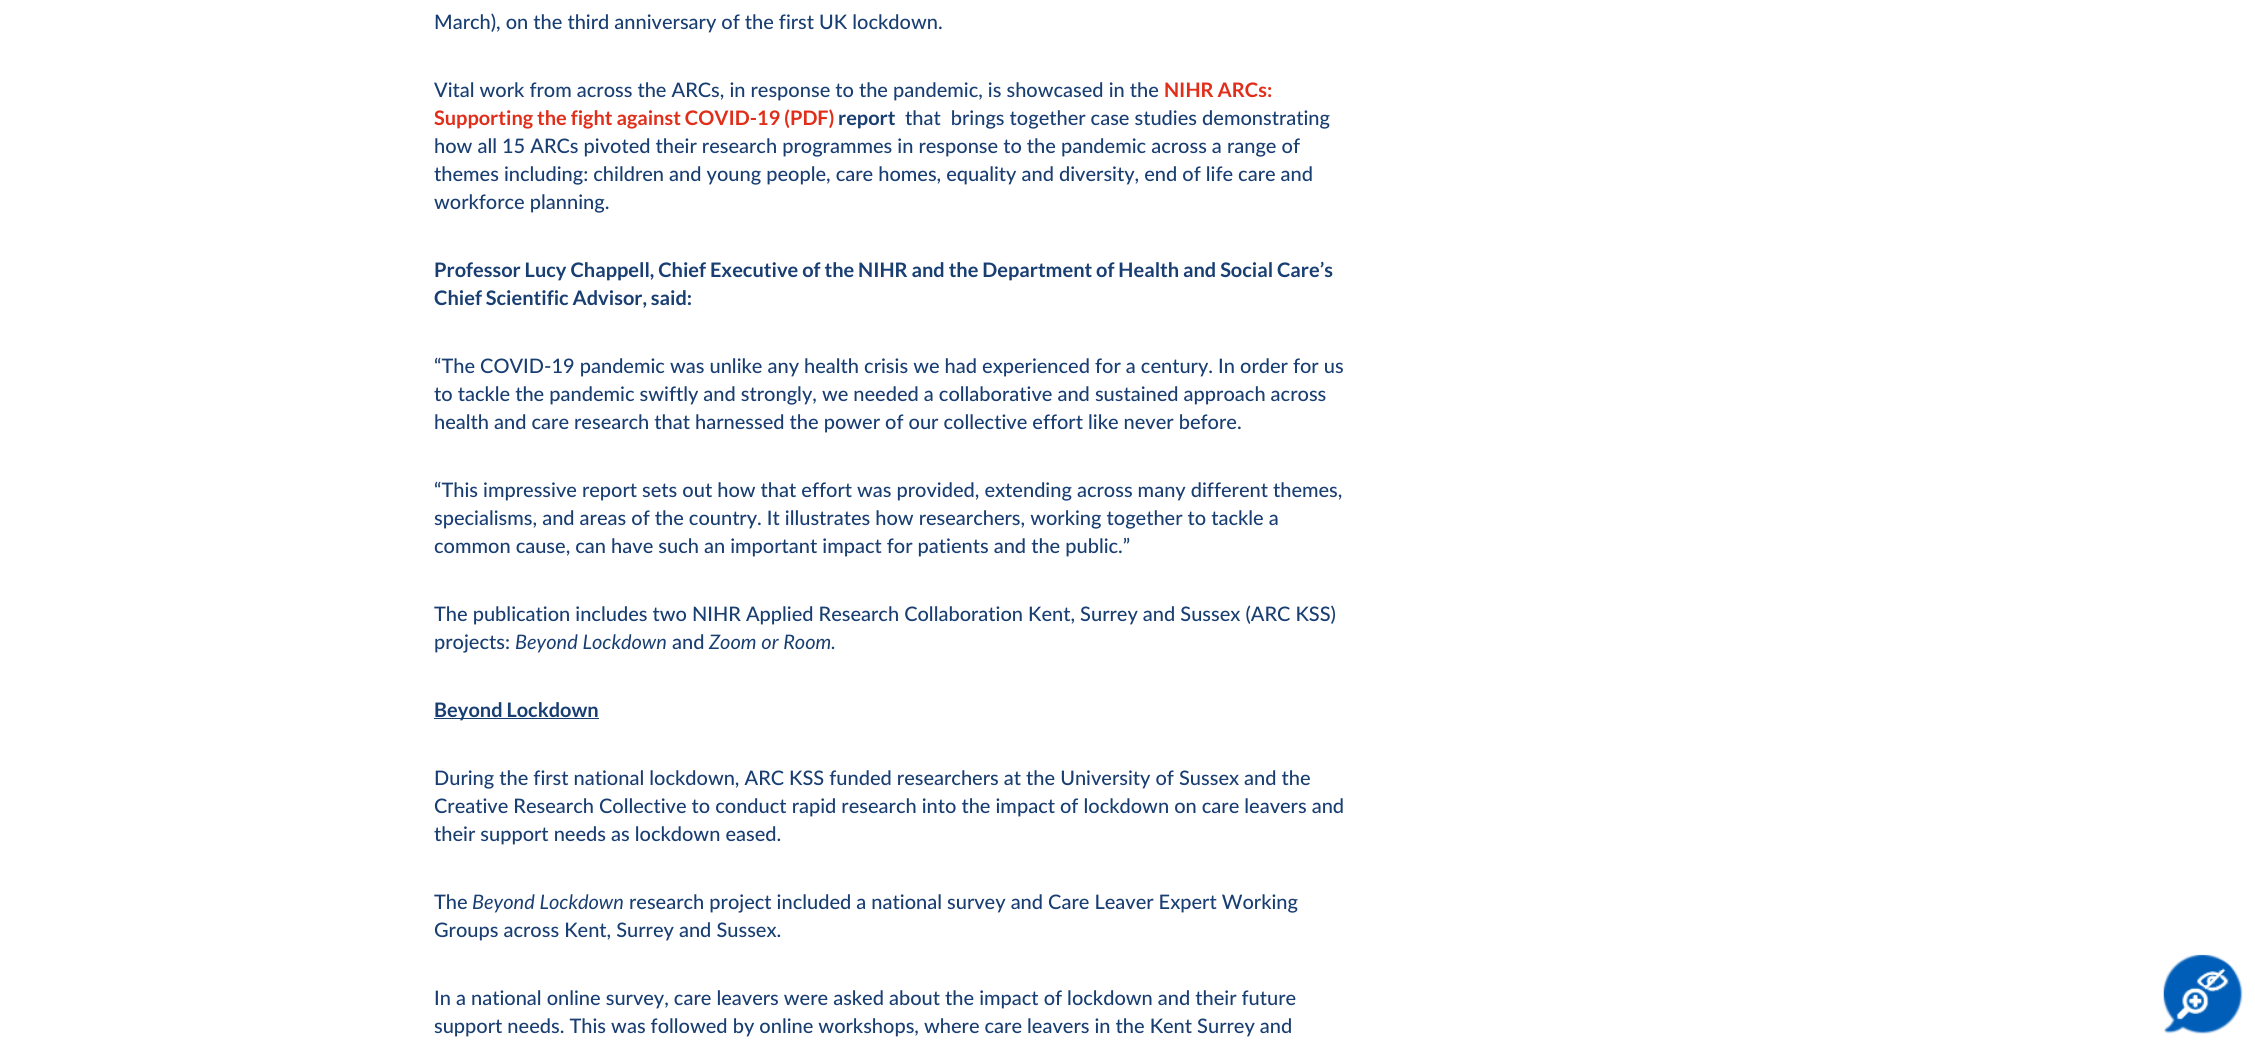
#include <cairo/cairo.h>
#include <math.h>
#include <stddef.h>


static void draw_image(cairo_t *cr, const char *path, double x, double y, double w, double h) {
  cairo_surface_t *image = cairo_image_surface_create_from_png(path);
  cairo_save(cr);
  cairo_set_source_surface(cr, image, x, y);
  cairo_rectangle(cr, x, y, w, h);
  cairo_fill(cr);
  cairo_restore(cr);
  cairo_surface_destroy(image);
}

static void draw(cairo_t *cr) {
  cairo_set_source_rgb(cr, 1, 1, 1);
  cairo_paint(cr);
  cairo_set_source_rgb(cr, 25 / 255.0, 62 / 255.0, 114 / 255.0);
  cairo_rectangle(cr, 434, 718, 165, 1);
  cairo_fill(cr);
  draw_image(cr, "images/1.png", 2163, 954, 80, 80);
  cairo_select_font_face(cr, "Lato Medium", CAIRO_FONT_SLANT_NORMAL, CAIRO_FONT_WEIGHT_NORMAL);
  cairo_set_font_size(cr, 20);
  cairo_move_to(cr, 434, 29);
  cairo_show_text(cr, "March), on the third anniversary of the first UK lockdown.");
  cairo_move_to(cr, 434, 97);
  cairo_show_text(cr, "Vital work from across the ARCs, in response to the pandemic, is showcased in the");
  cairo_select_font_face(cr, "Lato", CAIRO_FONT_SLANT_NORMAL, CAIRO_FONT_WEIGHT_BOLD);
  cairo_set_source_rgb(cr, 224 / 255.0, 46 / 255.0, 26 / 255.0);
  cairo_move_to(cr, 1164, 97);
  cairo_show_text(cr, "NIHR ARCs:");
  cairo_move_to(cr, 434, 125);
  cairo_show_text(cr, "Supporting the fight against COVID-19 (PDF)");
  cairo_set_source_rgb(cr, 25 / 255.0, 62 / 255.0, 114 / 255.0);
  cairo_move_to(cr, 838, 125);
  cairo_show_text(cr, "report");
  cairo_select_font_face(cr, "Lato Medium", CAIRO_FONT_SLANT_NORMAL, CAIRO_FONT_WEIGHT_NORMAL);
  cairo_move_to(cr, 905, 125);
  cairo_show_text(cr, "that  brings together case studies demonstrating");
  cairo_move_to(cr, 434, 153);
  cairo_show_text(cr, "how all 15 ARCs pivoted their research programmes in response to the pandemic across a range of");
  cairo_move_to(cr, 434, 181);
  cairo_show_text(cr, "themes including: children and young people, care homes, equality and diversity, end of life care and");
  cairo_move_to(cr, 434, 209);
  cairo_show_text(cr, "workforce planning.");
  cairo_select_font_face(cr, "Lato", CAIRO_FONT_SLANT_NORMAL, CAIRO_FONT_WEIGHT_BOLD);
  cairo_move_to(cr, 434, 277);
  cairo_show_text(cr, "Professor Lucy Chappell, Chief Executive of the NIHR and the Department of Health and Social Care’s");
  cairo_move_to(cr, 434, 305);
  cairo_show_text(cr, "Chief Scientific Advisor, said:");
  cairo_select_font_face(cr, "Lato Medium", CAIRO_FONT_SLANT_NORMAL, CAIRO_FONT_WEIGHT_NORMAL);
  cairo_move_to(cr, 434, 373);
  cairo_show_text(cr, "“The COVID-19 pandemic was unlike any health crisis we had experienced for a century. In order for us");
  cairo_move_to(cr, 434, 401);
  cairo_show_text(cr, "to tackle the pandemic swiftly and strongly, we needed a collaborative and sustained approach across");
  cairo_move_to(cr, 434, 429);
  cairo_show_text(cr, "health and care research that harnessed the power of our collective effort like never before.");
  cairo_move_to(cr, 434, 497);
  cairo_show_text(cr, "“This impressive report sets out how that effort was provided, extending across many different themes,");
  cairo_move_to(cr, 434, 525);
  cairo_show_text(cr, "specialisms, and areas of the country. It illustrates how researchers, working together to tackle a");
  cairo_move_to(cr, 434, 553);
  cairo_show_text(cr, "common cause, can have such an important impact for patients and the public.”");
  cairo_move_to(cr, 434, 621);
  cairo_show_text(cr, "The publication includes two NIHR Applied Research Collaboration Kent, Surrey and Sussex (ARC KSS)");
  cairo_move_to(cr, 434, 649);
  cairo_show_text(cr, "projects:");
  cairo_select_font_face(cr, "Lato", CAIRO_FONT_SLANT_ITALIC, CAIRO_FONT_WEIGHT_NORMAL);
  cairo_move_to(cr, 515, 649);
  cairo_show_text(cr, "Beyond Lockdown");
  cairo_select_font_face(cr, "Lato Medium", CAIRO_FONT_SLANT_NORMAL, CAIRO_FONT_WEIGHT_NORMAL);
  cairo_move_to(cr, 672, 649);
  cairo_show_text(cr, "and");
  cairo_select_font_face(cr, "Lato", CAIRO_FONT_SLANT_ITALIC, CAIRO_FONT_WEIGHT_NORMAL);
  cairo_move_to(cr, 709, 649);
  cairo_show_text(cr, "Zoom or Room.");
  cairo_select_font_face(cr, "Lato", CAIRO_FONT_SLANT_NORMAL, CAIRO_FONT_WEIGHT_BOLD);
  cairo_move_to(cr, 434, 717);
  cairo_show_text(cr, "Beyond Lockdown");
  cairo_select_font_face(cr, "Lato Medium", CAIRO_FONT_SLANT_NORMAL, CAIRO_FONT_WEIGHT_NORMAL);
  cairo_move_to(cr, 434, 785);
  cairo_show_text(cr, "During the first national lockdown, ARC KSS funded researchers at the University of Sussex and the");
  cairo_move_to(cr, 434, 813);
  cairo_show_text(cr, "Creative Research Collective to conduct rapid research into the impact of lockdown on care leavers and");
  cairo_move_to(cr, 434, 841);
  cairo_show_text(cr, "their support needs as lockdown eased.");
  cairo_move_to(cr, 434, 909);
  cairo_show_text(cr, "The");
  cairo_select_font_face(cr, "Lato", CAIRO_FONT_SLANT_ITALIC, CAIRO_FONT_WEIGHT_NORMAL);
  cairo_move_to(cr, 472, 909);
  cairo_show_text(cr, "Beyond Lockdown");
  cairo_select_font_face(cr, "Lato Medium", CAIRO_FONT_SLANT_NORMAL, CAIRO_FONT_WEIGHT_NORMAL);
  cairo_move_to(cr, 629, 909);
  cairo_show_text(cr, "research project included a national survey and Care Leaver Expert Working");
  cairo_move_to(cr, 434, 937);
  cairo_show_text(cr, "Groups across Kent, Surrey and Sussex.");
  cairo_move_to(cr, 434, 1005);
  cairo_show_text(cr, "In a national online survey, care leavers were asked about the impact of lockdown and their future");
  cairo_move_to(cr, 434, 1033);
  cairo_show_text(cr, "support needs. This was followed by online workshops, where care leavers in the Kent Surrey and");
}

int main(void) {
  cairo_surface_t *surface = cairo_image_surface_create(CAIRO_FORMAT_RGB24, 2255, 1046);
  cairo_t *cr = cairo_create(surface);
  cairo_font_options_t *options = cairo_font_options_create();
  cairo_font_options_set_hint_metrics(options, CAIRO_HINT_METRICS_OFF);
  cairo_font_options_set_hint_style(options, CAIRO_HINT_STYLE_NONE);
  cairo_set_font_options(cr, options);
  cairo_set_miter_limit(cr, 4);
  draw(cr);
  cairo_surface_write_to_png(surface, "out.png");
  cairo_font_options_destroy(options);
  cairo_destroy(cr);
  cairo_surface_destroy(surface);
  return 0;
}
